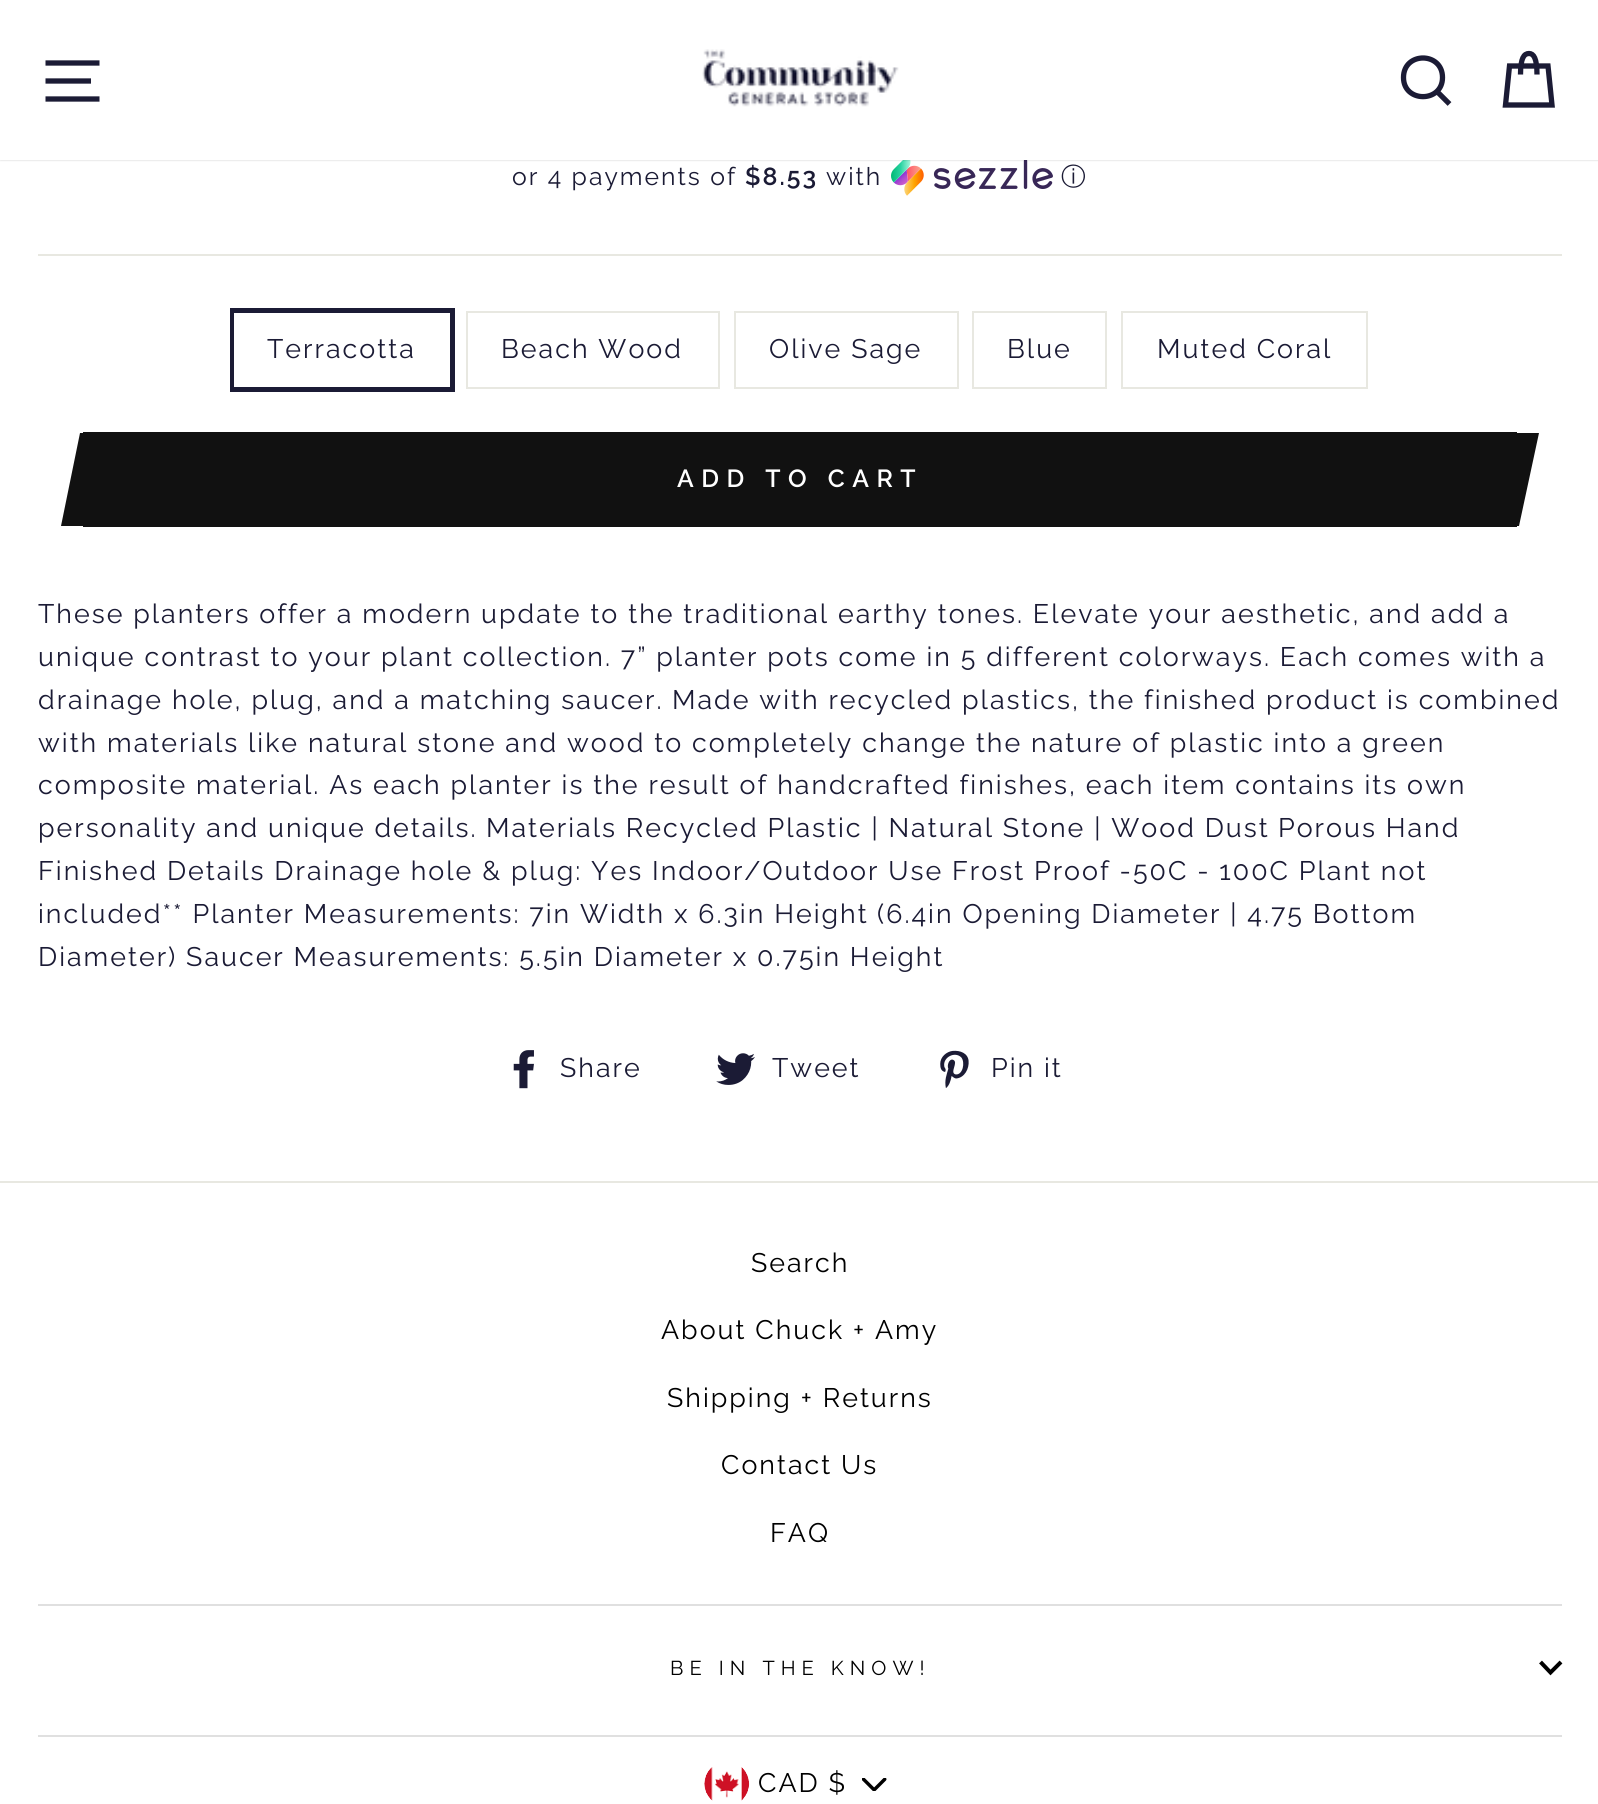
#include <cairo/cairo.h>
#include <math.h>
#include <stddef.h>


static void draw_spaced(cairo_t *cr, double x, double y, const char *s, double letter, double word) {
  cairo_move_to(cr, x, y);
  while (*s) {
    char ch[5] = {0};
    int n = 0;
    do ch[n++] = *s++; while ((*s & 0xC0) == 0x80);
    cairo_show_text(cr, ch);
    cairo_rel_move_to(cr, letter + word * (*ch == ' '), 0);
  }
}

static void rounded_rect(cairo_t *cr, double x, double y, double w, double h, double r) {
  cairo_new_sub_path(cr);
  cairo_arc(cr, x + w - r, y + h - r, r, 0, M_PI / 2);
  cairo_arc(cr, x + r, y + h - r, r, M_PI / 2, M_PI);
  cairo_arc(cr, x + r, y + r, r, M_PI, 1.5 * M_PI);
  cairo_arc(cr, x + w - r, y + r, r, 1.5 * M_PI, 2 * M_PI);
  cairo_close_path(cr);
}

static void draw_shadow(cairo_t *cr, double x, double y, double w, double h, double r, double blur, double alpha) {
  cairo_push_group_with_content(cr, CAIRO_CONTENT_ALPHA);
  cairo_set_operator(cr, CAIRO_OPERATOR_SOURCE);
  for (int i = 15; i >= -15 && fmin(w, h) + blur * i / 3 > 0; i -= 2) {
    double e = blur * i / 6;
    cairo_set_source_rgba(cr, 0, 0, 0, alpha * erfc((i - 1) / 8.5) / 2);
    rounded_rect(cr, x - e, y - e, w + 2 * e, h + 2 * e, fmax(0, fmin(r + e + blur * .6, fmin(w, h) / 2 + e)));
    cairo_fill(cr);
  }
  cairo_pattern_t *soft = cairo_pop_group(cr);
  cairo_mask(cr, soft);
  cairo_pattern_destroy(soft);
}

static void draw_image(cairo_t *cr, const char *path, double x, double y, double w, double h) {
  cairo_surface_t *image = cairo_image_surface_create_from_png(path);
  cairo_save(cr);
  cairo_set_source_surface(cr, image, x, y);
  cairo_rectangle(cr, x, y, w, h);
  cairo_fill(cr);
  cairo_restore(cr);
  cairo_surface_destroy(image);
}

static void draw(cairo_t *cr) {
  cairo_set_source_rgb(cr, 1, 1, 1);
  cairo_paint(cr);
  draw_image(cr, "images/2.png", 891, 160, 162, 36);
  cairo_set_source_rgb(cr, 0, 0, 0);
  draw_shadow(cr, 0, 0, 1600, 160, 0, 1, 0.2);
  cairo_set_source_rgb(cr, 1, 1, 1);
  cairo_rectangle(cr, 0, 0, 1598, 160);
  cairo_fill(cr);
  cairo_new_path(cr);
  cairo_move_to(cr, 45.5, 63);
  cairo_line_to(cr, 99.5, 63);
  cairo_move_to(cr, 45.5, 81);
  cairo_line_to(cr, 91, 81);
  cairo_move_to(cr, 45.5, 99);
  cairo_line_to(cr, 99.5, 99);
  cairo_set_source_rgb(cr, 27 / 255.0, 27 / 255.0, 53 / 255.0);
  cairo_set_line_width(cr, 5.3);
  cairo_stroke(cr);
  draw_image(cr, "images/1.png", 702, 49, 197, 58);
  cairo_new_path(cr);
  cairo_move_to(cr, 1442.5, 77.5);
  cairo_curve_to(cr, 1442.5, 103, 1403.5, 103, 1403.5, 77.5);
  cairo_curve_to(cr, 1403.5, 51.5, 1442.5, 51.5, 1442.5, 77.5);
  cairo_close_path(cr);
  cairo_move_to(cr, 1449.5, 104);
  cairo_line_to(cr, 1437, 91.5);
  cairo_stroke(cr);
  cairo_new_path(cr);
  cairo_move_to(cr, 1520.5, 74.5);
  cairo_curve_to(cr, 1520.5, 58, 1524, 53.5, 1529, 53.5);
  cairo_curve_to(cr, 1533.5, 53.5, 1537, 58, 1537, 74.5);
  cairo_move_to(cr, 1509.5, 66);
  cairo_line_to(cr, 1548, 66);
  cairo_line_to(cr, 1552, 105);
  cairo_line_to(cr, 1505.5, 105);
  cairo_close_path(cr);
  cairo_stroke(cr);
  cairo_set_source_rgb(cr, 232 / 255.0, 232 / 255.0, 225 / 255.0);
  cairo_rectangle(cr, 38, 254, 1524, 2);
  cairo_fill(cr);
  cairo_rectangle(cr, 232.5, 310.5, 220, 79);
  cairo_set_source_rgb(cr, 27 / 255.0, 27 / 255.0, 53 / 255.0);
  cairo_set_line_width(cr, 5);
  cairo_stroke(cr);
  cairo_set_source_rgb(cr, 1, 1, 1);
  cairo_rectangle(cr, 234, 313, 1, 74);
  cairo_fill(cr);
  cairo_rectangle(cr, 467, 312, 252, 76);
  cairo_set_source_rgb(cr, 232 / 255.0, 232 / 255.0, 225 / 255.0);
  cairo_set_line_width(cr, 2);
  cairo_stroke(cr);
  cairo_rectangle(cr, 735, 312, 223, 76);
  cairo_stroke(cr);
  cairo_rectangle(cr, 973, 312, 133, 76);
  cairo_stroke(cr);
  cairo_rectangle(cr, 1122, 312, 245, 76);
  cairo_stroke(cr);
  cairo_set_source_rgb(cr, 17 / 255.0, 17 / 255.0, 17 / 255.0);
  cairo_rectangle(cr, 83, 432, 1434, 95);
  cairo_fill(cr);
  cairo_new_path(cr);
  cairo_move_to(cr, 80, 433);
  cairo_line_to(cr, 125, 433);
  cairo_line_to(cr, 106, 526);
  cairo_line_to(cr, 61, 526);
  cairo_close_path(cr);
  cairo_fill(cr);
  cairo_new_path(cr);
  cairo_move_to(cr, 1494, 433);
  cairo_line_to(cr, 1539, 433);
  cairo_line_to(cr, 1519, 526);
  cairo_line_to(cr, 1474, 526);
  cairo_close_path(cr);
  cairo_fill(cr);
  draw_image(cr, "images/3.png", 513, 1050, 21, 39);
  draw_image(cr, "images/4.png", 716, 1053, 39, 32);
  draw_image(cr, "images/5.png", 940, 1050, 29, 38);
  cairo_set_source_rgb(cr, 232 / 255.0, 232 / 255.0, 225 / 255.0);
  cairo_rectangle(cr, 0, 1181, 1598, 2);
  cairo_fill(cr);
  cairo_set_source_rgb(cr, 224 / 255.0, 224 / 255.0, 224 / 255.0);
  cairo_rectangle(cr, 38, 1604, 1524, 2);
  cairo_fill(cr);
  cairo_new_path(cr);
  cairo_move_to(cr, 1540.5, 1662);
  cairo_line_to(cr, 1550.5, 1672.5);
  cairo_line_to(cr, 1561, 1662);
  cairo_set_source_rgb(cr, 0, 0, 0);
  cairo_set_line_width(cr, 4);
  cairo_stroke(cr);
  cairo_set_source_rgb(cr, 224 / 255.0, 224 / 255.0, 224 / 255.0);
  cairo_rectangle(cr, 38, 1735, 1524, 2);
  cairo_fill(cr);
  draw_image(cr, "images/6.png", 862, 1778, 25, 13);
  draw_image(cr, "images/7.png", 704, 1767, 46, 34);
  cairo_select_font_face(cr, "Raleway", CAIRO_FONT_SLANT_NORMAL, CAIRO_FONT_WEIGHT_NORMAL);
  cairo_set_font_size(cr, 24.75);
  cairo_set_source_rgb(cr, 27 / 255.0, 27 / 255.0, 53 / 255.0);
  draw_spaced(cr, 512, 185, "or 4 payments of", 2.01, 0);
  cairo_select_font_face(cr, "Raleway SemiBold", CAIRO_FONT_SLANT_NORMAL, CAIRO_FONT_WEIGHT_NORMAL);
  draw_spaced(cr, 745, 185, "$8.53", 2.01, 0);
  cairo_select_font_face(cr, "Raleway", CAIRO_FONT_SLANT_NORMAL, CAIRO_FONT_WEIGHT_NORMAL);
  draw_spaced(cr, 826, 185, "with", 2.01, 0);
  cairo_select_font_face(cr, "WenQuanYi Zen Hei Medium", CAIRO_FONT_SLANT_NORMAL, CAIRO_FONT_WEIGHT_NORMAL);
  draw_spaced(cr, 1061, 185, "ⓘ", 2.01, 0);
  cairo_select_font_face(cr, "Raleway", CAIRO_FONT_SLANT_NORMAL, CAIRO_FONT_WEIGHT_NORMAL);
  cairo_set_font_size(cr, 26.78);
  draw_spaced(cr, 267, 358, "Terracotta", 2.01, 0);
  draw_spaced(cr, 501, 358, "Beach Wood", 2.01, 0);
  draw_spaced(cr, 769, 358, "Olive Sage", 2.01, 0);
  draw_spaced(cr, 1007, 358, "Blue", 2.01, 0);
  draw_spaced(cr, 1157, 358, "Muted Coral", 2.01, 0);
  cairo_select_font_face(cr, "Raleway SemiBold", CAIRO_FONT_SLANT_NORMAL, CAIRO_FONT_WEIGHT_NORMAL);
  cairo_set_font_size(cr, 24.75);
  cairo_set_source_rgb(cr, 1, 1, 1);
  draw_spaced(cr, 677, 487, "ADD TO CART", 7.5, 0);
  cairo_select_font_face(cr, "Raleway", CAIRO_FONT_SLANT_NORMAL, CAIRO_FONT_WEIGHT_NORMAL);
  cairo_set_font_size(cr, 26.78);
  cairo_set_source_rgb(cr, 27 / 255.0, 27 / 255.0, 53 / 255.0);
  draw_spaced(cr, 38, 623, "These planters offer a modern update to the traditional earthy tones. Elevate your aesthetic, and add a", 2.01, 0);
  draw_spaced(cr, 38, 666, "unique contrast to your plant collection. 7” planter pots come in 5 different colorways. Each comes with a", 2.01, 0);
  draw_spaced(cr, 38, 709, "drainage hole, plug, and a matching saucer.", 2.01, 0);
  draw_spaced(cr, 672, 709, "Made with recycled plastics, the finished product is combined", 2.01, 0);
  draw_spaced(cr, 38, 752, "with materials like natural stone and wood to completely change the nature of plastic into a green", 2.01, 0);
  draw_spaced(cr, 38, 794, "composite material. As each planter is the result of handcrafted finishes, each item contains its own", 2.01, 0);
  draw_spaced(cr, 38, 837, "personality and unique details.", 2.01, 0);
  draw_spaced(cr, 486, 837, "Materials Recycled Plastic | Natural Stone | Wood Dust", 2.01, 0);
  draw_spaced(cr, 1278, 837, "Porous Hand", 2.01, 0);
  draw_spaced(cr, 38, 880, "Finished Details Drainage hole & plug: Yes Indoor/Outdoor Use Frost Proof -50C - 100C Plant not", 2.01, 0);
  draw_spaced(cr, 38, 923, "included** Planter Measurements: 7in Width x 6.3in Height", 2.01, 0);
  draw_spaced(cr, 877, 923, "(6.4in Opening Diameter | 4.75 Bottom", 2.01, 0);
  draw_spaced(cr, 38, 966, "Diameter) Saucer Measurements: 5.5in Diameter x 0.75in Height", 2.01, 0);
  draw_spaced(cr, 560, 1077, "Share", 2.01, 0);
  draw_spaced(cr, 772, 1077, "Tweet", 2.01, 0);
  draw_spaced(cr, 991, 1077, "Pin it", 2.01, 0);
  cairo_set_source_rgb(cr, 0, 0, 0);
  draw_spaced(cr, 751, 1272, "Search", 2.01, 0);
  draw_spaced(cr, 661, 1339, "About Chuck + Amy", 2.01, 0);
  draw_spaced(cr, 667, 1407, "Shipping + Returns", 2.01, 0);
  draw_spaced(cr, 721, 1474, "Contact Us", 2.01, 0);
  draw_spaced(cr, 770, 1542, "FAQ", 2.01, 0);
  cairo_set_font_size(cr, 20.1);
  draw_spaced(cr, 670, 1675, "BE IN THE KNOW!", 6, 0);
  cairo_set_font_size(cr, 26.78);
  draw_spaced(cr, 758, 1792, "CAD $", 2.01, 0);
}

int main(void) {
  cairo_surface_t *surface = cairo_image_surface_create(CAIRO_FORMAT_RGB24, 1598, 1804);
  cairo_t *cr = cairo_create(surface);
  cairo_font_options_t *options = cairo_font_options_create();
  cairo_font_options_set_hint_metrics(options, CAIRO_HINT_METRICS_OFF);
  cairo_font_options_set_hint_style(options, CAIRO_HINT_STYLE_NONE);
  cairo_set_font_options(cr, options);
  cairo_set_miter_limit(cr, 4);
  draw(cr);
  cairo_surface_write_to_png(surface, "out.png");
  cairo_font_options_destroy(options);
  cairo_destroy(cr);
  cairo_surface_destroy(surface);
  return 0;
}
